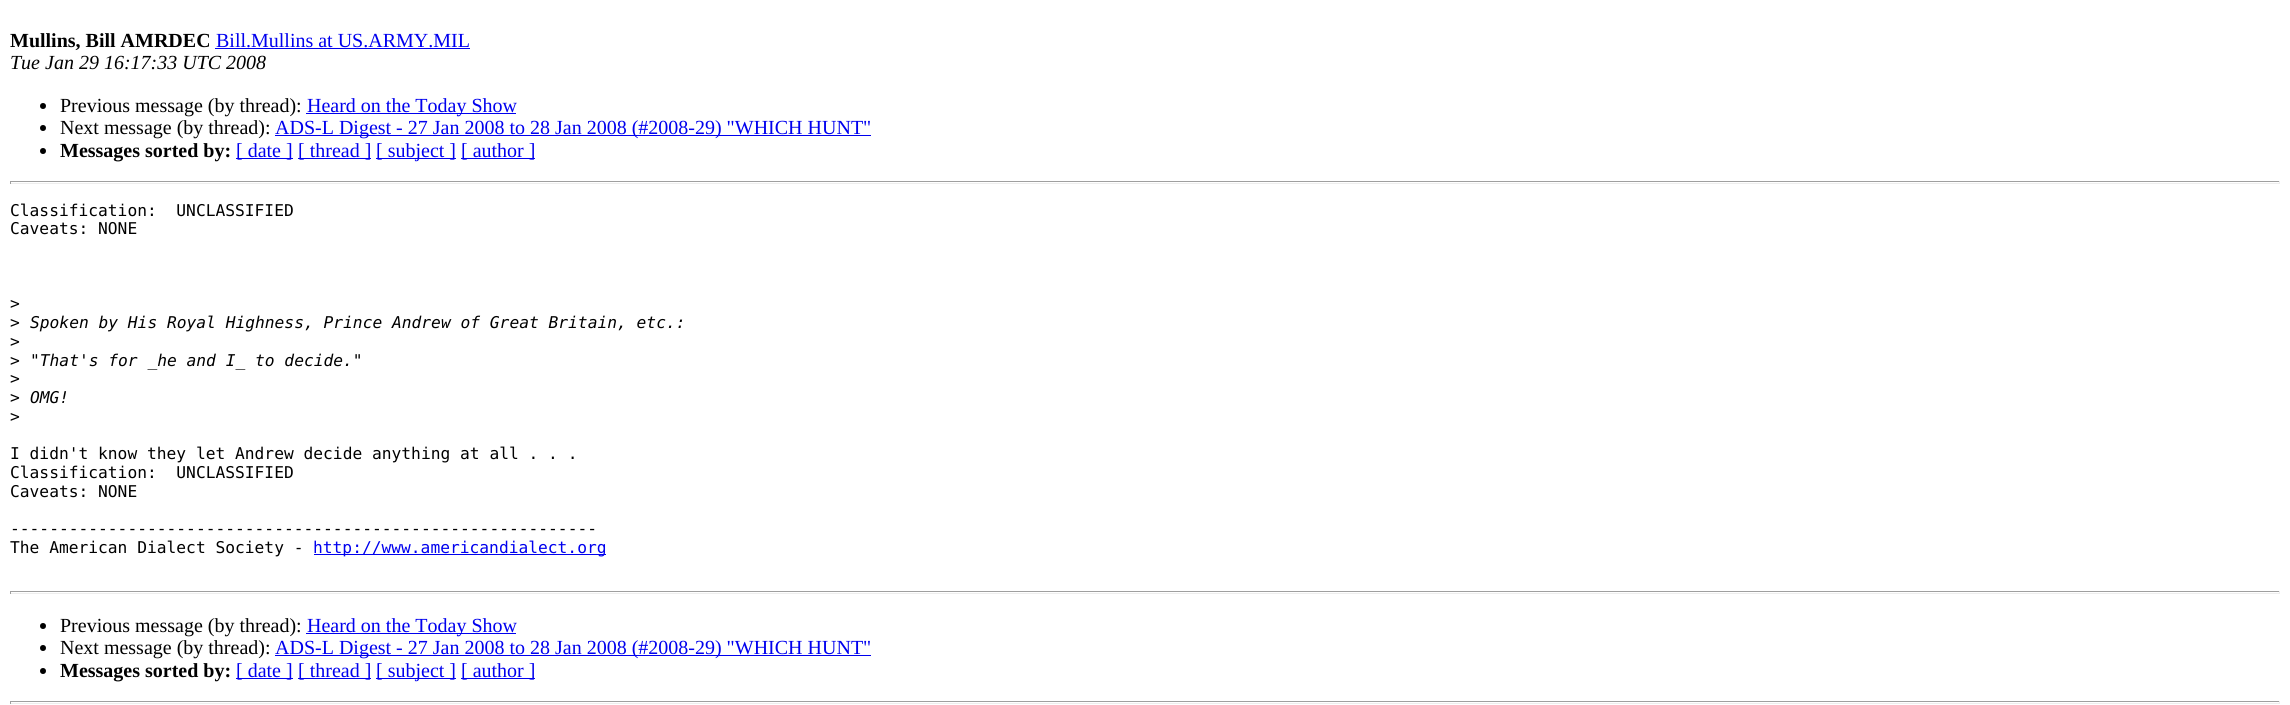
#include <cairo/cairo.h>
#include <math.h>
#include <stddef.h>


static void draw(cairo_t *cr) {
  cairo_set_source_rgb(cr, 1, 1, 1);
  cairo_paint(cr);
  cairo_set_source_rgb(cr, 0, 0, 238 / 255.0);
  cairo_rectangle(cr, 215, 48, 255, 1);
  cairo_fill(cr);
  cairo_set_source_rgb(cr, 0, 0, 0);
  cairo_arc(cr, 43, 106, 3, 0, 2 * M_PI);
  cairo_fill(cr);
  cairo_set_source_rgb(cr, 0, 0, 238 / 255.0);
  cairo_rectangle(cr, 306, 113, 210, 1);
  cairo_fill(cr);
  cairo_set_source_rgb(cr, 0, 0, 0);
  cairo_arc(cr, 43, 128, 3, 0, 2 * M_PI);
  cairo_fill(cr);
  cairo_set_source_rgb(cr, 0, 0, 238 / 255.0);
  cairo_rectangle(cr, 275, 135, 596, 1);
  cairo_fill(cr);
  cairo_set_source_rgb(cr, 0, 0, 0);
  cairo_arc(cr, 43, 151, 3, 0, 2 * M_PI);
  cairo_fill(cr);
  cairo_set_source_rgb(cr, 0, 0, 238 / 255.0);
  cairo_rectangle(cr, 236, 158, 57, 1);
  cairo_fill(cr);
  cairo_rectangle(cr, 298, 158, 73, 1);
  cairo_fill(cr);
  cairo_rectangle(cr, 376, 158, 80, 1);
  cairo_fill(cr);
  cairo_rectangle(cr, 461, 158, 74, 1);
  cairo_fill(cr);
  cairo_set_source_rgb(cr, 159 / 255.0, 159 / 255.0, 159 / 255.0);
  cairo_rectangle(cr, 10, 181, 2270, 1);
  cairo_fill(cr);
  cairo_set_source_rgb(cr, 238 / 255.0, 238 / 255.0, 238 / 255.0);
  cairo_rectangle(cr, 2279, 181, 1, 3);
  cairo_fill(cr);
  cairo_rectangle(cr, 10, 183, 2270, 1);
  cairo_fill(cr);
  cairo_set_source_rgb(cr, 159 / 255.0, 159 / 255.0, 159 / 255.0);
  cairo_rectangle(cr, 10, 181, 1, 3);
  cairo_fill(cr);
  cairo_set_source_rgb(cr, 0, 0, 238 / 255.0);
  cairo_rectangle(cr, 314, 554, 292, 1);
  cairo_fill(cr);
  cairo_set_source_rgb(cr, 159 / 255.0, 159 / 255.0, 159 / 255.0);
  cairo_rectangle(cr, 10, 591, 2270, 1);
  cairo_fill(cr);
  cairo_set_source_rgb(cr, 238 / 255.0, 238 / 255.0, 238 / 255.0);
  cairo_rectangle(cr, 2279, 591, 1, 3);
  cairo_fill(cr);
  cairo_rectangle(cr, 10, 593, 2270, 1);
  cairo_fill(cr);
  cairo_set_source_rgb(cr, 159 / 255.0, 159 / 255.0, 159 / 255.0);
  cairo_rectangle(cr, 10, 591, 1, 3);
  cairo_fill(cr);
  cairo_set_source_rgb(cr, 0, 0, 0);
  cairo_arc(cr, 43, 626, 3, 0, 2 * M_PI);
  cairo_fill(cr);
  cairo_set_source_rgb(cr, 0, 0, 238 / 255.0);
  cairo_rectangle(cr, 306, 633, 210, 1);
  cairo_fill(cr);
  cairo_set_source_rgb(cr, 0, 0, 0);
  cairo_arc(cr, 43, 648, 3, 0, 2 * M_PI);
  cairo_fill(cr);
  cairo_set_source_rgb(cr, 0, 0, 238 / 255.0);
  cairo_rectangle(cr, 275, 655, 596, 1);
  cairo_fill(cr);
  cairo_set_source_rgb(cr, 0, 0, 0);
  cairo_arc(cr, 43, 671, 3, 0, 2 * M_PI);
  cairo_fill(cr);
  cairo_set_source_rgb(cr, 0, 0, 238 / 255.0);
  cairo_rectangle(cr, 236, 678, 57, 1);
  cairo_fill(cr);
  cairo_rectangle(cr, 298, 678, 73, 1);
  cairo_fill(cr);
  cairo_rectangle(cr, 376, 678, 80, 1);
  cairo_fill(cr);
  cairo_rectangle(cr, 461, 678, 74, 1);
  cairo_fill(cr);
  cairo_set_source_rgb(cr, 159 / 255.0, 159 / 255.0, 159 / 255.0);
  cairo_rectangle(cr, 10, 701, 2270, 1);
  cairo_fill(cr);
  cairo_set_source_rgb(cr, 238 / 255.0, 238 / 255.0, 238 / 255.0);
  cairo_rectangle(cr, 2279, 701, 1, 3);
  cairo_fill(cr);
  cairo_rectangle(cr, 10, 703, 2270, 1);
  cairo_fill(cr);
  cairo_set_source_rgb(cr, 159 / 255.0, 159 / 255.0, 159 / 255.0);
  cairo_rectangle(cr, 10, 701, 1, 3);
  cairo_fill(cr);
  cairo_select_font_face(cr, "Liberation Serif", CAIRO_FONT_SLANT_NORMAL, CAIRO_FONT_WEIGHT_BOLD);
  cairo_set_font_size(cr, 20);
  cairo_set_source_rgb(cr, 0, 0, 0);
  cairo_move_to(cr, 10, 47);
  cairo_show_text(cr, "Mullins, Bill AMRDEC");
  cairo_select_font_face(cr, "Liberation Serif", CAIRO_FONT_SLANT_NORMAL, CAIRO_FONT_WEIGHT_NORMAL);
  cairo_set_source_rgb(cr, 0, 0, 238 / 255.0);
  cairo_move_to(cr, 216, 47);
  cairo_show_text(cr, "Bill.Mullins at US.ARMY.MIL");
  cairo_select_font_face(cr, "Liberation Serif", CAIRO_FONT_SLANT_ITALIC, CAIRO_FONT_WEIGHT_NORMAL);
  cairo_set_source_rgb(cr, 0, 0, 0);
  cairo_move_to(cr, 10, 69);
  cairo_show_text(cr, "Tue Jan 29 16:17:33 UTC 2008");
  cairo_select_font_face(cr, "Liberation Serif", CAIRO_FONT_SLANT_NORMAL, CAIRO_FONT_WEIGHT_NORMAL);
  cairo_move_to(cr, 60, 112);
  cairo_show_text(cr, "Previous message (by thread):");
  cairo_set_source_rgb(cr, 0, 0, 238 / 255.0);
  cairo_move_to(cr, 307, 112);
  cairo_show_text(cr, "Heard on the Today Show");
  cairo_set_source_rgb(cr, 0, 0, 0);
  cairo_move_to(cr, 60, 134);
  cairo_show_text(cr, "Next message (by thread):");
  cairo_set_source_rgb(cr, 0, 0, 238 / 255.0);
  cairo_move_to(cr, 275, 134);
  cairo_show_text(cr, "ADS-L Digest - 27 Jan 2008 to 28 Jan 2008 (#2008-29) \"WHICH HUNT\"");
  cairo_select_font_face(cr, "Liberation Serif", CAIRO_FONT_SLANT_NORMAL, CAIRO_FONT_WEIGHT_BOLD);
  cairo_set_source_rgb(cr, 0, 0, 0);
  cairo_move_to(cr, 60, 157);
  cairo_show_text(cr, "Messages sorted by:");
  cairo_select_font_face(cr, "Liberation Serif", CAIRO_FONT_SLANT_NORMAL, CAIRO_FONT_WEIGHT_NORMAL);
  cairo_set_source_rgb(cr, 0, 0, 238 / 255.0);
  cairo_move_to(cr, 236, 157);
  cairo_show_text(cr, "[ date ]");
  cairo_move_to(cr, 298, 157);
  cairo_show_text(cr, "[ thread ]");
  cairo_move_to(cr, 376, 157);
  cairo_show_text(cr, "[ subject ]");
  cairo_move_to(cr, 461, 157);
  cairo_show_text(cr, "[ author ]");
  cairo_select_font_face(cr, "DejaVu Sans Mono", CAIRO_FONT_SLANT_NORMAL, CAIRO_FONT_WEIGHT_NORMAL);
  cairo_set_font_size(cr, 16.25);
  cairo_set_source_rgb(cr, 0, 0, 0);
  cairo_move_to(cr, 10, 216);
  cairo_show_text(cr, "Classification:  UNCLASSIFIED");
  cairo_move_to(cr, 10, 234);
  cairo_show_text(cr, "Caveats: NONE");
  cairo_move_to(cr, 10, 309);
  cairo_show_text(cr, ">");
  cairo_move_to(cr, 10, 328);
  cairo_show_text(cr, ">");
  cairo_select_font_face(cr, "DejaVu Sans Mono", CAIRO_FONT_SLANT_ITALIC, CAIRO_FONT_WEIGHT_NORMAL);
  cairo_move_to(cr, 30, 328);
  cairo_show_text(cr, "Spoken by His Royal Highness, Prince Andrew of Great Britain, etc.:");
  cairo_select_font_face(cr, "DejaVu Sans Mono", CAIRO_FONT_SLANT_NORMAL, CAIRO_FONT_WEIGHT_NORMAL);
  cairo_move_to(cr, 10, 347);
  cairo_show_text(cr, ">");
  cairo_move_to(cr, 10, 366);
  cairo_show_text(cr, ">");
  cairo_select_font_face(cr, "DejaVu Sans Mono", CAIRO_FONT_SLANT_ITALIC, CAIRO_FONT_WEIGHT_NORMAL);
  cairo_move_to(cr, 30, 366);
  cairo_show_text(cr, "\"That's for _he and I_ to decide.\"");
  cairo_select_font_face(cr, "DejaVu Sans Mono", CAIRO_FONT_SLANT_NORMAL, CAIRO_FONT_WEIGHT_NORMAL);
  cairo_move_to(cr, 10, 384);
  cairo_show_text(cr, ">");
  cairo_move_to(cr, 10, 403);
  cairo_show_text(cr, ">");
  cairo_select_font_face(cr, "DejaVu Sans Mono", CAIRO_FONT_SLANT_ITALIC, CAIRO_FONT_WEIGHT_NORMAL);
  cairo_move_to(cr, 30, 403);
  cairo_show_text(cr, "OMG!");
  cairo_select_font_face(cr, "DejaVu Sans Mono", CAIRO_FONT_SLANT_NORMAL, CAIRO_FONT_WEIGHT_NORMAL);
  cairo_move_to(cr, 10, 422);
  cairo_show_text(cr, ">");
  cairo_move_to(cr, 10, 459);
  cairo_show_text(cr, "I didn't know they let Andrew decide anything at all . . .");
  cairo_move_to(cr, 10, 478);
  cairo_show_text(cr, "Classification:  UNCLASSIFIED");
  cairo_move_to(cr, 10, 497);
  cairo_show_text(cr, "Caveats: NONE");
  cairo_move_to(cr, 10, 534);
  cairo_show_text(cr, "------------------------------------------------------------");
  cairo_move_to(cr, 10, 553);
  cairo_show_text(cr, "The American Dialect Society -");
  cairo_set_source_rgb(cr, 0, 0, 238 / 255.0);
  cairo_move_to(cr, 313, 553);
  cairo_show_text(cr, "http://www.americandialect.org");
  cairo_select_font_face(cr, "Liberation Serif", CAIRO_FONT_SLANT_NORMAL, CAIRO_FONT_WEIGHT_NORMAL);
  cairo_set_font_size(cr, 20);
  cairo_set_source_rgb(cr, 0, 0, 0);
  cairo_move_to(cr, 60, 632);
  cairo_show_text(cr, "Previous message (by thread):");
  cairo_set_source_rgb(cr, 0, 0, 238 / 255.0);
  cairo_move_to(cr, 307, 632);
  cairo_show_text(cr, "Heard on the Today Show");
  cairo_set_source_rgb(cr, 0, 0, 0);
  cairo_move_to(cr, 60, 654);
  cairo_show_text(cr, "Next message (by thread):");
  cairo_set_source_rgb(cr, 0, 0, 238 / 255.0);
  cairo_move_to(cr, 275, 654);
  cairo_show_text(cr, "ADS-L Digest - 27 Jan 2008 to 28 Jan 2008 (#2008-29) \"WHICH HUNT\"");
  cairo_select_font_face(cr, "Liberation Serif", CAIRO_FONT_SLANT_NORMAL, CAIRO_FONT_WEIGHT_BOLD);
  cairo_set_source_rgb(cr, 0, 0, 0);
  cairo_move_to(cr, 60, 677);
  cairo_show_text(cr, "Messages sorted by:");
  cairo_select_font_face(cr, "Liberation Serif", CAIRO_FONT_SLANT_NORMAL, CAIRO_FONT_WEIGHT_NORMAL);
  cairo_set_source_rgb(cr, 0, 0, 238 / 255.0);
  cairo_move_to(cr, 236, 677);
  cairo_show_text(cr, "[ date ]");
  cairo_move_to(cr, 298, 677);
  cairo_show_text(cr, "[ thread ]");
  cairo_move_to(cr, 376, 677);
  cairo_show_text(cr, "[ subject ]");
  cairo_move_to(cr, 461, 677);
  cairo_show_text(cr, "[ author ]");
}

int main(void) {
  cairo_surface_t *surface = cairo_image_surface_create(CAIRO_FORMAT_RGB24, 2290, 705);
  cairo_t *cr = cairo_create(surface);
  cairo_font_options_t *options = cairo_font_options_create();
  cairo_font_options_set_hint_metrics(options, CAIRO_HINT_METRICS_OFF);
  cairo_font_options_set_hint_style(options, CAIRO_HINT_STYLE_NONE);
  cairo_set_font_options(cr, options);
  cairo_set_miter_limit(cr, 4);
  draw(cr);
  cairo_surface_write_to_png(surface, "out.png");
  cairo_font_options_destroy(options);
  cairo_destroy(cr);
  cairo_surface_destroy(surface);
  return 0;
}
